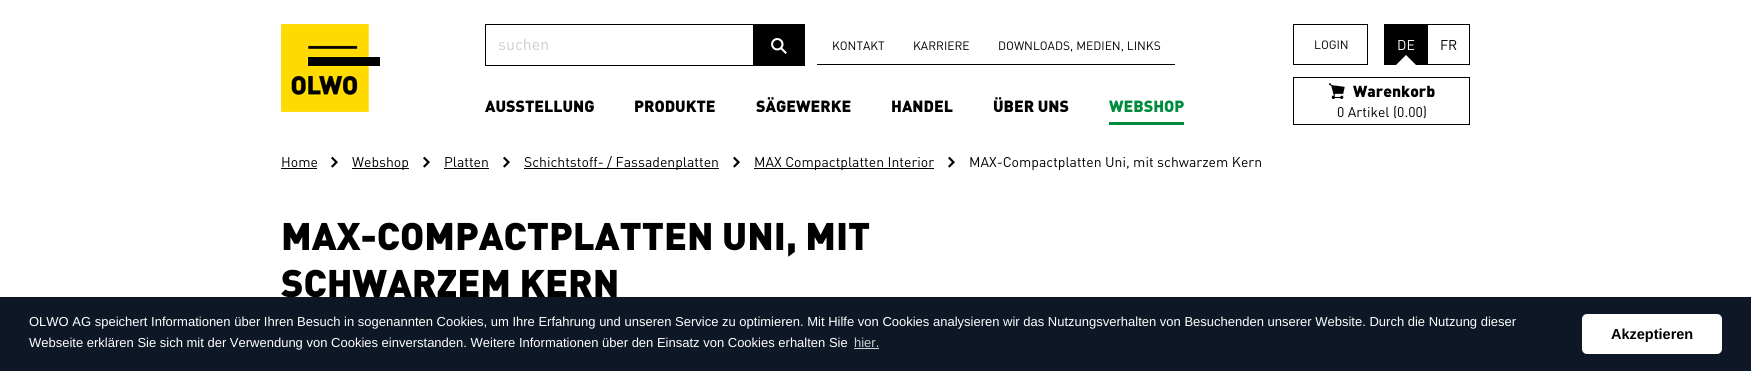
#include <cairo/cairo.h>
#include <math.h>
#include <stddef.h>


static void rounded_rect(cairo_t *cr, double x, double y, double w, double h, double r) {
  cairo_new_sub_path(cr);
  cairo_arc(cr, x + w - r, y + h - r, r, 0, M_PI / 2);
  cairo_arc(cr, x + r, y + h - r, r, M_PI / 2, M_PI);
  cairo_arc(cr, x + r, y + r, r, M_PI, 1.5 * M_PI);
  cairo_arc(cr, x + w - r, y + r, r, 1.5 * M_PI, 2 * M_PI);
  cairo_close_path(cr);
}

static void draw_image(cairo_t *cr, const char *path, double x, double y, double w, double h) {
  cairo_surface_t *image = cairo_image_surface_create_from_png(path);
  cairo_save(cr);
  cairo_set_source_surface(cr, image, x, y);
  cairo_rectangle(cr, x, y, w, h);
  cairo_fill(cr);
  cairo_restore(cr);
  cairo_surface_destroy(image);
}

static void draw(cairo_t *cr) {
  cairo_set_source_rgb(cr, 1, 1, 1);
  cairo_paint(cr);
  draw_image(cr, "images/1.png", 281, 24, 99, 88);
  cairo_rectangle(cr, 485.5, 24.5, 319, 41);
  cairo_set_source_rgb(cr, 0, 0, 0);
  cairo_set_line_width(cr, 1);
  cairo_stroke(cr);
  cairo_rectangle(cr, 753, 25, 51, 40);
  cairo_fill(cr);
  draw_image(cr, "images/2.png", 771, 38, 16, 16);
  cairo_rectangle(cr, 817, 64, 358, 1);
  cairo_fill(cr);
  cairo_rectangle(cr, 1293.5, 24.5, 74, 40);
  cairo_stroke(cr);
  cairo_rectangle(cr, 1384, 24, 43, 41);
  cairo_fill(cr);
  cairo_set_source_rgb(cr, 1, 1, 1);
  cairo_new_path(cr);
  cairo_move_to(cr, 1416, 65);
  cairo_line_to(cr, 1396, 65);
  cairo_line_to(cr, 1406, 55);
  cairo_close_path(cr);
  cairo_fill(cr);
  cairo_rectangle(cr, 1427.5, 24.5, 42, 40);
  cairo_set_source_rgb(cr, 0, 0, 0);
  cairo_stroke(cr);
  cairo_set_source_rgb(cr, 0, 139 / 255.0, 61 / 255.0);
  cairo_rectangle(cr, 1109, 122, 75, 3);
  cairo_fill(cr);
  cairo_rectangle(cr, 1293.5, 77.5, 176, 47);
  cairo_set_source_rgb(cr, 0, 0, 0);
  cairo_stroke(cr);
  draw_image(cr, "images/3.png", 1329, 83, 16, 16);
  cairo_rectangle(cr, 281, 168, 36, 1);
  cairo_fill(cr);
  draw_image(cr, "images/4.png", 331, 156, 7, 12);
  cairo_rectangle(cr, 352, 168, 57, 1);
  cairo_fill(cr);
  draw_image(cr, "images/4.png", 423, 156, 7, 12);
  cairo_rectangle(cr, 444, 168, 45, 1);
  cairo_fill(cr);
  draw_image(cr, "images/4.png", 503, 156, 7, 12);
  cairo_rectangle(cr, 524, 168, 195, 1);
  cairo_fill(cr);
  draw_image(cr, "images/4.png", 733, 156, 7, 12);
  cairo_rectangle(cr, 754, 168, 180, 1);
  cairo_fill(cr);
  draw_image(cr, "images/4.png", 948, 156, 7, 12);
  cairo_select_font_face(cr, "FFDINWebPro", CAIRO_FONT_SLANT_NORMAL, CAIRO_FONT_WEIGHT_NORMAL);
  cairo_set_font_size(cr, 16);
  cairo_set_source_rgb(cr, 204 / 255.0, 204 / 255.0, 204 / 255.0);
  cairo_move_to(cr, 498, 50);
  cairo_show_text(cr, "suchen");
  cairo_set_font_size(cr, 12);
  cairo_set_source_rgb(cr, 0, 0, 0);
  cairo_move_to(cr, 832, 50);
  cairo_show_text(cr, "KONTAKT");
  cairo_move_to(cr, 913, 50);
  cairo_show_text(cr, "KARRIERE");
  cairo_move_to(cr, 998, 50);
  cairo_show_text(cr, "DOWNLOADS, MEDIEN, LINKS");
  cairo_move_to(cr, 1314, 49);
  cairo_show_text(cr, "LOGIN");
  cairo_set_font_size(cr, 14);
  cairo_set_source_rgb(cr, 1, 1, 1);
  cairo_move_to(cr, 1397, 50);
  cairo_show_text(cr, "DE");
  cairo_set_source_rgb(cr, 0, 0, 0);
  cairo_move_to(cr, 1440, 50);
  cairo_show_text(cr, "FR");
  cairo_select_font_face(cr, "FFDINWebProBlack", CAIRO_FONT_SLANT_NORMAL, CAIRO_FONT_WEIGHT_NORMAL);
  cairo_set_font_size(cr, 16);
  cairo_move_to(cr, 485, 112);
  cairo_show_text(cr, "AUSSTELLUNG");
  cairo_move_to(cr, 634, 112);
  cairo_show_text(cr, "PRODUKTE");
  cairo_move_to(cr, 756, 112);
  cairo_show_text(cr, "SÄGEWERKE");
  cairo_move_to(cr, 891, 112);
  cairo_show_text(cr, "HANDEL");
  cairo_move_to(cr, 993, 112);
  cairo_show_text(cr, "ÜBER UNS");
  cairo_set_source_rgb(cr, 0, 139 / 255.0, 61 / 255.0);
  cairo_move_to(cr, 1109, 112);
  cairo_show_text(cr, "WEBSHOP");
  cairo_set_font_size(cr, 15.75);
  cairo_set_source_rgb(cr, 0, 0, 0);
  cairo_move_to(cr, 1353, 97);
  cairo_show_text(cr, "Warenkorb");
  cairo_select_font_face(cr, "FFDINWebPro", CAIRO_FONT_SLANT_NORMAL, CAIRO_FONT_WEIGHT_NORMAL);
  cairo_set_font_size(cr, 14);
  cairo_move_to(cr, 1337, 117);
  cairo_show_text(cr, "0 Artikel (0.00)");
  cairo_move_to(cr, 281, 167);
  cairo_show_text(cr, "Home");
  cairo_move_to(cr, 352, 167);
  cairo_show_text(cr, "Webshop");
  cairo_move_to(cr, 444, 167);
  cairo_show_text(cr, "Platten");
  cairo_move_to(cr, 524, 167);
  cairo_show_text(cr, "Schichtstoff- / Fassadenplatten");
  cairo_move_to(cr, 754, 167);
  cairo_show_text(cr, "MAX Compactplatten Interior");
  cairo_move_to(cr, 969, 167);
  cairo_show_text(cr, "MAX-Compactplatten Uni, mit schwarzem Kern");
  cairo_select_font_face(cr, "FFDINWebProBlack", CAIRO_FONT_SLANT_NORMAL, CAIRO_FONT_WEIGHT_NORMAL);
  cairo_set_font_size(cr, 38);
  cairo_move_to(cr, 281, 250);
  cairo_show_text(cr, "MAX-COMPACTPLATTEN UNI, MIT");
  cairo_move_to(cr, 281, 297);
  cairo_show_text(cr, "SCHWARZEM KERN");
  cairo_set_source_rgb(cr, 14 / 255.0, 23 / 255.0, 38 / 255.0);
  cairo_rectangle(cr, 0, 297, 1751, 74);
  cairo_fill(cr);
  cairo_select_font_face(cr, "Liberation Sans", CAIRO_FONT_SLANT_NORMAL, CAIRO_FONT_WEIGHT_NORMAL);
  cairo_set_font_size(cr, 13);
  cairo_set_source_rgb(cr, 1, 1, 1);
  cairo_move_to(cr, 29, 326);
  cairo_show_text(cr, "OLWO AG speichert Informationen über Ihren Besuch in sogenannten Cookies, um Ihre Erfahrung und unseren Service zu optimieren. Mit Hilfe von Cookies analysieren wir das Nutzungsverhalten von Besuchenden unserer Website. Durch die Nutzung dieser");
  cairo_move_to(cr, 29, 347);
  cairo_show_text(cr, "Webseite erklären Sie sich mit der Verwendung von Cookies einverstanden. Weitere Informationen über den Einsatz von Cookies erhalten Sie");
  cairo_set_source_rgb(cr, 207 / 255.0, 209 / 255.0, 212 / 255.0);
  cairo_move_to(cr, 854, 347);
  cairo_show_text(cr, "hier.");
  cairo_rectangle(cr, 854, 348, 25, 1);
  cairo_fill(cr);
  cairo_set_source_rgb(cr, 1, 1, 1);
  rounded_rect(cr, 1582, 314, 140, 40, 5);
  cairo_fill(cr);
  cairo_select_font_face(cr, "Liberation Sans", CAIRO_FONT_SLANT_NORMAL, CAIRO_FONT_WEIGHT_BOLD);
  cairo_set_font_size(cr, 14.5);
  cairo_set_source_rgb(cr, 0, 0, 0);
  cairo_move_to(cr, 1611, 339);
  cairo_show_text(cr, "Akzeptieren");
}

int main(void) {
  cairo_surface_t *surface = cairo_image_surface_create(CAIRO_FORMAT_RGB24, 1751, 371);
  cairo_t *cr = cairo_create(surface);
  cairo_font_options_t *options = cairo_font_options_create();
  cairo_font_options_set_hint_metrics(options, CAIRO_HINT_METRICS_OFF);
  cairo_font_options_set_hint_style(options, CAIRO_HINT_STYLE_NONE);
  cairo_set_font_options(cr, options);
  cairo_set_miter_limit(cr, 4);
  draw(cr);
  cairo_surface_write_to_png(surface, "out.png");
  cairo_font_options_destroy(options);
  cairo_destroy(cr);
  cairo_surface_destroy(surface);
  return 0;
}
